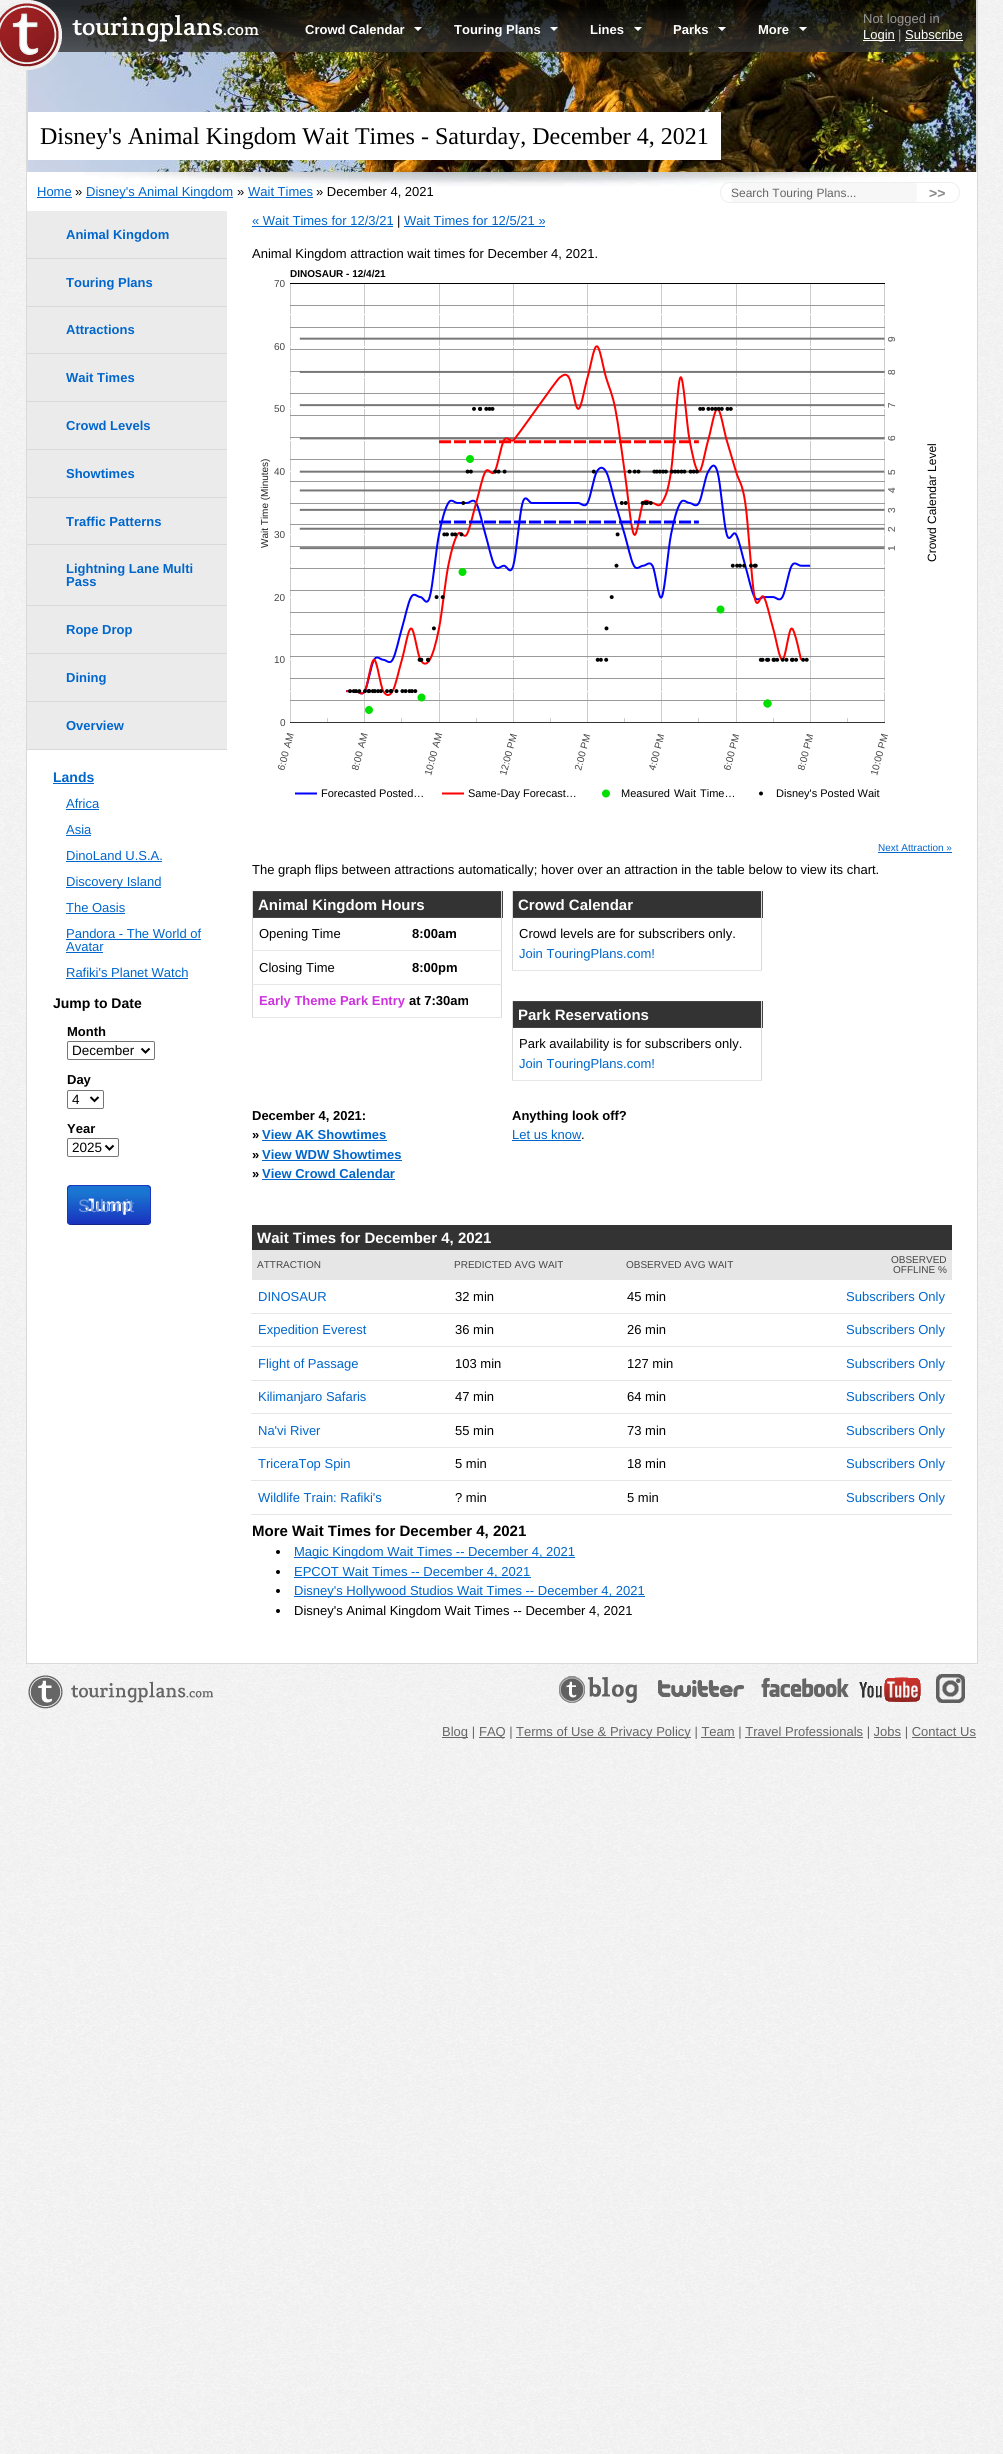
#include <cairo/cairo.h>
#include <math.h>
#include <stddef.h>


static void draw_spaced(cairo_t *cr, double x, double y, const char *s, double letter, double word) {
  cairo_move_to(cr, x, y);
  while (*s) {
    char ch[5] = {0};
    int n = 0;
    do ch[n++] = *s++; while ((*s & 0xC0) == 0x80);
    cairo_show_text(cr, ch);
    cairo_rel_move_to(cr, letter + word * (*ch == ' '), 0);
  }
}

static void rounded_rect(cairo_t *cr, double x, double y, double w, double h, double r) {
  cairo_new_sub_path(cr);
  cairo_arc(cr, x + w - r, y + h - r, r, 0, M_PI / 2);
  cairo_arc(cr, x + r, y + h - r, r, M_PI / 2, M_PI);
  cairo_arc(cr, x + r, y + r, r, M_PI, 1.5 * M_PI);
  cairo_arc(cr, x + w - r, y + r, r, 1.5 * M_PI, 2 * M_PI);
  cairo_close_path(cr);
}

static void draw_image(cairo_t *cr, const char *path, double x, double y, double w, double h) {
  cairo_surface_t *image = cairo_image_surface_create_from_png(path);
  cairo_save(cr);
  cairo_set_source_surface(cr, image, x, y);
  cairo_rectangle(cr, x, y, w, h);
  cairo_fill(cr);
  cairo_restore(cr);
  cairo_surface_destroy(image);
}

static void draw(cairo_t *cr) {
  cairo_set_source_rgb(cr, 1, 1, 1);
  cairo_paint(cr);
  draw_image(cr, "images/1.png", 0, 0, 1003, 2454);
  draw_image(cr, "images/2.png", 27, 0, 949, 172);
  cairo_set_source_rgb(cr, 217 / 255.0, 217 / 255.0, 217 / 255.0);
  cairo_rectangle(cr, 976, 72, 2, 100);
  cairo_fill(cr);
  cairo_rectangle(cr, 26, 15, 1, 157);
  cairo_fill(cr);
  cairo_rectangle(cr, 976, 0, 2, 72);
  cairo_fill(cr);
  draw_image(cr, "images/3.png", 0, 0, 976, 70);
  draw_image(cr, "images/4.png", 72, 15, 187, 27);
  draw_image(cr, "images/5.png", 414, 27, 8, 4);
  draw_image(cr, "images/6.png", 550, 27, 8, 4);
  draw_image(cr, "images/7.png", 634, 27, 8, 4);
  draw_image(cr, "images/8.png", 718, 27, 8, 4);
  draw_image(cr, "images/9.png", 799, 27, 8, 4);
  cairo_set_source_rgb(cr, 1, 1, 1);
  cairo_rectangle(cr, 863, 40, 32, 1);
  cairo_fill(cr);
  cairo_rectangle(cr, 905, 40, 58, 1);
  cairo_fill(cr);
  cairo_set_source_rgb(cr, 217 / 255.0, 217 / 255.0, 217 / 255.0);
  cairo_rectangle(cr, 27, 70, 1, 102);
  cairo_fill(cr);
  cairo_set_source_rgb(cr, 1, 1, 1);
  cairo_rectangle(cr, 28, 112, 693, 48);
  cairo_fill(cr);
  cairo_rectangle(cr, 27, 172, 950, 1491);
  cairo_fill(cr);
  draw_image(cr, "images/10.png", 84, 172, 840, 15);
  cairo_set_source_rgb(cr, 217 / 255.0, 217 / 255.0, 217 / 255.0);
  cairo_rectangle(cr, 977, 172, 1, 1492);
  cairo_fill(cr);
  cairo_rectangle(cr, 26, 1663, 952, 1);
  cairo_fill(cr);
  cairo_rectangle(cr, 26, 172, 1, 1492);
  cairo_fill(cr);
  cairo_set_source_rgb(cr, 0, 102 / 255.0, 204 / 255.0);
  cairo_rectangle(cr, 37, 197, 35, 1);
  cairo_fill(cr);
  cairo_rectangle(cr, 86, 197, 147, 1);
  cairo_fill(cr);
  cairo_rectangle(cr, 248, 197, 65, 1);
  cairo_fill(cr);
  rounded_rect(cr, 720.5, 182.5, 239, 20, 9.5);
  cairo_set_source_rgb(cr, 238 / 255.0, 238 / 255.0, 238 / 255.0);
  cairo_set_line_width(cr, 1);
  cairo_stroke(cr);
  cairo_set_source_rgb(cr, 247 / 255.0, 247 / 255.0, 247 / 255.0);
  rounded_rect(cr, 731, 183, 186, 19, 3);
  cairo_fill(cr);
  cairo_set_source_rgb(cr, 235 / 255.0, 235 / 255.0, 235 / 255.0);
  cairo_rectangle(cr, 27, 211, 200, 47);
  cairo_fill(cr);
  cairo_set_source_rgb(cr, 217 / 255.0, 217 / 255.0, 217 / 255.0);
  cairo_rectangle(cr, 27, 258, 200, 1);
  cairo_fill(cr);
  cairo_set_source_rgb(cr, 235 / 255.0, 235 / 255.0, 235 / 255.0);
  cairo_rectangle(cr, 27, 259, 200, 47);
  cairo_fill(cr);
  cairo_set_source_rgb(cr, 217 / 255.0, 217 / 255.0, 217 / 255.0);
  cairo_rectangle(cr, 27, 306, 200, 1);
  cairo_fill(cr);
  cairo_set_source_rgb(cr, 235 / 255.0, 235 / 255.0, 235 / 255.0);
  cairo_rectangle(cr, 27, 307, 200, 46);
  cairo_fill(cr);
  cairo_set_source_rgb(cr, 217 / 255.0, 217 / 255.0, 217 / 255.0);
  cairo_rectangle(cr, 27, 353, 200, 1);
  cairo_fill(cr);
  cairo_set_source_rgb(cr, 235 / 255.0, 235 / 255.0, 235 / 255.0);
  cairo_rectangle(cr, 27, 354, 200, 47);
  cairo_fill(cr);
  cairo_set_source_rgb(cr, 217 / 255.0, 217 / 255.0, 217 / 255.0);
  cairo_rectangle(cr, 27, 401, 200, 1);
  cairo_fill(cr);
  cairo_set_source_rgb(cr, 235 / 255.0, 235 / 255.0, 235 / 255.0);
  cairo_rectangle(cr, 27, 402, 200, 47);
  cairo_fill(cr);
  cairo_set_source_rgb(cr, 217 / 255.0, 217 / 255.0, 217 / 255.0);
  cairo_rectangle(cr, 27, 449, 200, 1);
  cairo_fill(cr);
  cairo_set_source_rgb(cr, 235 / 255.0, 235 / 255.0, 235 / 255.0);
  cairo_rectangle(cr, 27, 450, 200, 47);
  cairo_fill(cr);
  cairo_set_source_rgb(cr, 217 / 255.0, 217 / 255.0, 217 / 255.0);
  cairo_rectangle(cr, 27, 497, 200, 1);
  cairo_fill(cr);
  cairo_set_source_rgb(cr, 235 / 255.0, 235 / 255.0, 235 / 255.0);
  cairo_rectangle(cr, 27, 498, 200, 46);
  cairo_fill(cr);
  cairo_set_source_rgb(cr, 217 / 255.0, 217 / 255.0, 217 / 255.0);
  cairo_rectangle(cr, 27, 544, 200, 1);
  cairo_fill(cr);
  cairo_set_source_rgb(cr, 235 / 255.0, 235 / 255.0, 235 / 255.0);
  cairo_rectangle(cr, 27, 545, 200, 60);
  cairo_fill(cr);
  cairo_set_source_rgb(cr, 217 / 255.0, 217 / 255.0, 217 / 255.0);
  cairo_rectangle(cr, 27, 605, 200, 1);
  cairo_fill(cr);
  cairo_set_source_rgb(cr, 235 / 255.0, 235 / 255.0, 235 / 255.0);
  cairo_rectangle(cr, 27, 606, 200, 47);
  cairo_fill(cr);
  cairo_set_source_rgb(cr, 217 / 255.0, 217 / 255.0, 217 / 255.0);
  cairo_rectangle(cr, 27, 653, 200, 1);
  cairo_fill(cr);
  cairo_set_source_rgb(cr, 235 / 255.0, 235 / 255.0, 235 / 255.0);
  cairo_rectangle(cr, 27, 654, 200, 47);
  cairo_fill(cr);
  cairo_set_source_rgb(cr, 217 / 255.0, 217 / 255.0, 217 / 255.0);
  cairo_rectangle(cr, 27, 701, 200, 1);
  cairo_fill(cr);
  cairo_set_source_rgb(cr, 235 / 255.0, 235 / 255.0, 235 / 255.0);
  cairo_rectangle(cr, 27, 702, 200, 47);
  cairo_fill(cr);
  cairo_set_source_rgb(cr, 217 / 255.0, 217 / 255.0, 217 / 255.0);
  cairo_rectangle(cr, 27, 749, 200, 1);
  cairo_fill(cr);
  cairo_set_source_rgb(cr, 0, 102 / 255.0, 204 / 255.0);
  cairo_rectangle(cr, 53, 783, 41, 1);
  cairo_fill(cr);
  cairo_rectangle(cr, 66, 809, 33, 1);
  cairo_fill(cr);
  cairo_rectangle(cr, 66, 835, 25, 1);
  cairo_fill(cr);
  cairo_rectangle(cr, 66, 861, 96, 1);
  cairo_fill(cr);
  cairo_rectangle(cr, 66, 887, 95, 1);
  cairo_fill(cr);
  cairo_rectangle(cr, 66, 913, 59, 1);
  cairo_fill(cr);
  cairo_rectangle(cr, 66, 939, 135, 1);
  cairo_fill(cr);
  cairo_rectangle(cr, 66, 952, 37, 1);
  cairo_fill(cr);
  cairo_rectangle(cr, 66, 978, 122, 1);
  cairo_fill(cr);
  rounded_rect(cr, 67.5, 1041.5, 87, 18, 1.5);
  cairo_set_source_rgb(cr, 118 / 255.0, 118 / 255.0, 118 / 255.0);
  cairo_stroke(cr);
  cairo_new_path(cr);
  cairo_move_to(cr, 141.5, 1048.5);
  cairo_line_to(cr, 145.5, 1052.5);
  cairo_line_to(cr, 149.5, 1048.5);
  cairo_set_source_rgb(cr, 0, 0, 0);
  cairo_set_line_width(cr, 2);
  cairo_stroke(cr);
  rounded_rect(cr, 67.5, 1090.5, 36, 18, 1.5);
  cairo_set_source_rgb(cr, 118 / 255.0, 118 / 255.0, 118 / 255.0);
  cairo_set_line_width(cr, 1);
  cairo_stroke(cr);
  cairo_new_path(cr);
  cairo_move_to(cr, 90.5, 1097);
  cairo_line_to(cr, 94.5, 1101);
  cairo_line_to(cr, 98.5, 1097);
  cairo_set_source_rgb(cr, 0, 0, 0);
  cairo_set_line_width(cr, 2);
  cairo_stroke(cr);
  rounded_rect(cr, 67.5, 1138.5, 51, 18, 1.5);
  cairo_set_source_rgb(cr, 118 / 255.0, 118 / 255.0, 118 / 255.0);
  cairo_set_line_width(cr, 1);
  cairo_stroke(cr);
  cairo_new_path(cr);
  cairo_move_to(cr, 105.5, 1145.5);
  cairo_line_to(cr, 109.5, 1149.5);
  cairo_line_to(cr, 113.5, 1145.5);
  cairo_set_source_rgb(cr, 0, 0, 0);
  cairo_set_line_width(cr, 2);
  cairo_stroke(cr);
  draw_image(cr, "images/11.png", 72, 1185, 79, 40);
  draw_image(cr, "images/12.png", 67, 1185, 5, 40);
  cairo_set_source_rgb(cr, 0, 102 / 255.0, 204 / 255.0);
  cairo_rectangle(cr, 252, 226, 141, 1);
  cairo_fill(cr);
  cairo_rectangle(cr, 404, 226, 141, 1);
  cairo_fill(cr);
  draw_image(cr, "images/13.png", 290, 283, 595, 515);
  cairo_rectangle(cr, 878, 852, 74, 1);
  cairo_fill(cr);
  cairo_set_source_rgb(cr, 51 / 255.0, 51 / 255.0, 51 / 255.0);
  cairo_rectangle(cr, 253, 892, 248, 25);
  cairo_fill(cr);
  cairo_rectangle(cr, 252.5, 891.5, 250, 26);
  cairo_set_source_rgb(cr, 68 / 255.0, 68 / 255.0, 68 / 255.0);
  cairo_set_line_width(cr, 1);
  cairo_stroke(cr);
  cairo_set_source_rgb(cr, 217 / 255.0, 217 / 255.0, 217 / 255.0);
  cairo_rectangle(cr, 501, 891, 1, 127);
  cairo_fill(cr);
  cairo_rectangle(cr, 252, 891, 1, 127);
  cairo_fill(cr);
  cairo_set_source_rgb(cr, 230 / 255.0, 230 / 255.0, 230 / 255.0);
  cairo_rectangle(cr, 252, 950, 250, 1);
  cairo_fill(cr);
  cairo_rectangle(cr, 252, 984, 250, 1);
  cairo_fill(cr);
  cairo_rectangle(cr, 252, 1017, 250, 1);
  cairo_fill(cr);
  cairo_set_source_rgb(cr, 51 / 255.0, 51 / 255.0, 51 / 255.0);
  cairo_rectangle(cr, 513, 892, 248, 25);
  cairo_fill(cr);
  cairo_rectangle(cr, 512.5, 891.5, 250, 26);
  cairo_set_source_rgb(cr, 68 / 255.0, 68 / 255.0, 68 / 255.0);
  cairo_stroke(cr);
  cairo_set_source_rgb(cr, 217 / 255.0, 217 / 255.0, 217 / 255.0);
  cairo_rectangle(cr, 761, 891, 1, 80);
  cairo_fill(cr);
  cairo_rectangle(cr, 512, 891, 1, 80);
  cairo_fill(cr);
  cairo_set_source_rgb(cr, 230 / 255.0, 230 / 255.0, 230 / 255.0);
  cairo_rectangle(cr, 512, 970, 250, 1);
  cairo_fill(cr);
  cairo_set_source_rgb(cr, 51 / 255.0, 51 / 255.0, 51 / 255.0);
  cairo_rectangle(cr, 513, 1002, 248, 25);
  cairo_fill(cr);
  cairo_rectangle(cr, 512.5, 1001.5, 250, 26);
  cairo_set_source_rgb(cr, 68 / 255.0, 68 / 255.0, 68 / 255.0);
  cairo_stroke(cr);
  cairo_set_source_rgb(cr, 217 / 255.0, 217 / 255.0, 217 / 255.0);
  cairo_rectangle(cr, 761, 1001, 1, 80);
  cairo_fill(cr);
  cairo_rectangle(cr, 512, 1001, 1, 80);
  cairo_fill(cr);
  cairo_set_source_rgb(cr, 230 / 255.0, 230 / 255.0, 230 / 255.0);
  cairo_rectangle(cr, 512, 1080, 250, 1);
  cairo_fill(cr);
  cairo_set_source_rgb(cr, 0, 102 / 255.0, 204 / 255.0);
  cairo_rectangle(cr, 262, 1140, 125, 1);
  cairo_fill(cr);
  cairo_rectangle(cr, 262, 1160, 140, 1);
  cairo_fill(cr);
  cairo_rectangle(cr, 262, 1179, 133, 1);
  cairo_fill(cr);
  cairo_rectangle(cr, 512, 1140, 69, 1);
  cairo_fill(cr);
  cairo_set_source_rgb(cr, 51 / 255.0, 51 / 255.0, 51 / 255.0);
  cairo_rectangle(cr, 252, 1225, 700, 25);
  cairo_fill(cr);
  cairo_set_source_rgb(cr, 230 / 255.0, 230 / 255.0, 230 / 255.0);
  cairo_rectangle(cr, 252, 1250, 700, 30);
  cairo_fill(cr);
  cairo_rectangle(cr, 251, 1313, 701, 1);
  cairo_fill(cr);
  cairo_rectangle(cr, 251, 1346, 701, 1);
  cairo_fill(cr);
  cairo_rectangle(cr, 251, 1380, 701, 1);
  cairo_fill(cr);
  cairo_rectangle(cr, 251, 1413, 701, 1);
  cairo_fill(cr);
  cairo_rectangle(cr, 251, 1447, 701, 1);
  cairo_fill(cr);
  cairo_rectangle(cr, 251, 1480, 701, 1);
  cairo_fill(cr);
  cairo_rectangle(cr, 251, 1514, 701, 1);
  cairo_fill(cr);
  cairo_set_source_rgb(cr, 0, 0, 0);
  cairo_arc(cr, 278, 1552, 2, 0, 2 * M_PI);
  cairo_fill(cr);
  cairo_set_source_rgb(cr, 0, 102 / 255.0, 204 / 255.0);
  cairo_rectangle(cr, 294, 1557, 281, 1);
  cairo_fill(cr);
  cairo_set_source_rgb(cr, 0, 0, 0);
  cairo_arc(cr, 278, 1572, 2, 0, 2 * M_PI);
  cairo_fill(cr);
  cairo_set_source_rgb(cr, 0, 102 / 255.0, 204 / 255.0);
  cairo_rectangle(cr, 294, 1577, 237, 1);
  cairo_fill(cr);
  cairo_set_source_rgb(cr, 0, 0, 0);
  cairo_arc(cr, 278, 1591, 2, 0, 2 * M_PI);
  cairo_fill(cr);
  cairo_set_source_rgb(cr, 0, 102 / 255.0, 204 / 255.0);
  cairo_rectangle(cr, 294, 1596, 351, 1);
  cairo_fill(cr);
  cairo_set_source_rgb(cr, 0, 0, 0);
  cairo_arc(cr, 278, 1611, 2, 0, 2 * M_PI);
  cairo_fill(cr);
  draw_image(cr, "images/14.png", 28, 1675, 186, 34);
  draw_image(cr, "images/15.png", 559, 1676, 78, 27);
  draw_image(cr, "images/16.png", 658, 1680, 86, 17);
  draw_image(cr, "images/17.png", 761, 1678, 88, 19);
  draw_image(cr, "images/18.png", 859, 1677, 62, 25);
  draw_image(cr, "images/19.png", 936, 1674, 29, 29);
  cairo_set_source_rgb(cr, 102 / 255.0, 102 / 255.0, 102 / 255.0);
  cairo_rectangle(cr, 442, 1737, 26, 1);
  cairo_fill(cr);
  cairo_rectangle(cr, 479, 1737, 26, 1);
  cairo_fill(cr);
  cairo_rectangle(cr, 516, 1737, 175, 1);
  cairo_fill(cr);
  cairo_rectangle(cr, 701, 1737, 34, 1);
  cairo_fill(cr);
  cairo_rectangle(cr, 745, 1737, 118, 1);
  cairo_fill(cr);
  cairo_rectangle(cr, 874, 1737, 27, 1);
  cairo_fill(cr);
  cairo_rectangle(cr, 912, 1737, 64, 1);
  cairo_fill(cr);
  cairo_select_font_face(cr, "Liberation Sans", CAIRO_FONT_SLANT_NORMAL, CAIRO_FONT_WEIGHT_BOLD);
  cairo_set_font_size(cr, 13);
  cairo_set_source_rgb(cr, 1, 1, 1);
  cairo_move_to(cr, 305, 34);
  cairo_show_text(cr, "Crowd Calendar");
  cairo_move_to(cr, 454, 34);
  cairo_show_text(cr, "Touring Plans");
  cairo_move_to(cr, 590, 34);
  cairo_show_text(cr, "Lines");
  cairo_move_to(cr, 673, 34);
  cairo_show_text(cr, "Parks");
  cairo_move_to(cr, 758, 34);
  cairo_show_text(cr, "More");
  cairo_select_font_face(cr, "Liberation Sans", CAIRO_FONT_SLANT_NORMAL, CAIRO_FONT_WEIGHT_NORMAL);
  cairo_set_source_rgb(cr, 153 / 255.0, 153 / 255.0, 153 / 255.0);
  cairo_move_to(cr, 863, 23);
  cairo_show_text(cr, "Not logged in");
  cairo_set_source_rgb(cr, 1, 1, 1);
  cairo_move_to(cr, 863, 39);
  cairo_show_text(cr, "Login");
  cairo_set_source_rgb(cr, 153 / 255.0, 153 / 255.0, 153 / 255.0);
  cairo_move_to(cr, 898, 39);
  cairo_show_text(cr, "|");
  cairo_set_source_rgb(cr, 1, 1, 1);
  cairo_move_to(cr, 905, 39);
  cairo_show_text(cr, "Subscribe");
  cairo_select_font_face(cr, "Liberation Serif", CAIRO_FONT_SLANT_NORMAL, CAIRO_FONT_WEIGHT_NORMAL);
  cairo_set_font_size(cr, 24);
  cairo_set_source_rgb(cr, 0, 0, 0);
  cairo_move_to(cr, 40, 144);
  cairo_show_text(cr, "Disney's Animal Kingdom Wait Times - Saturday, December 4, 2021");
  cairo_select_font_face(cr, "Liberation Sans", CAIRO_FONT_SLANT_NORMAL, CAIRO_FONT_WEIGHT_NORMAL);
  cairo_set_font_size(cr, 13);
  cairo_set_source_rgb(cr, 0, 102 / 255.0, 204 / 255.0);
  cairo_move_to(cr, 37, 196);
  cairo_show_text(cr, "Home");
  cairo_set_source_rgb(cr, 0, 0, 0);
  cairo_move_to(cr, 75, 196);
  cairo_show_text(cr, "»");
  cairo_set_source_rgb(cr, 0, 102 / 255.0, 204 / 255.0);
  cairo_move_to(cr, 86, 196);
  cairo_show_text(cr, "Disney's Animal Kingdom");
  cairo_set_source_rgb(cr, 0, 0, 0);
  cairo_move_to(cr, 237, 196);
  cairo_show_text(cr, "»");
  cairo_set_source_rgb(cr, 0, 102 / 255.0, 204 / 255.0);
  cairo_move_to(cr, 248, 196);
  cairo_show_text(cr, "Wait Times");
  cairo_set_source_rgb(cr, 0, 0, 0);
  cairo_move_to(cr, 316, 196);
  cairo_show_text(cr, "» December 4, 2021");
  cairo_set_font_size(cr, 12);
  cairo_set_source_rgb(cr, 102 / 255.0, 102 / 255.0, 102 / 255.0);
  cairo_move_to(cr, 731, 197);
  cairo_show_text(cr, "Search Touring Plans...");
  cairo_select_font_face(cr, "Liberation Sans", CAIRO_FONT_SLANT_NORMAL, CAIRO_FONT_WEIGHT_BOLD);
  cairo_set_font_size(cr, 14);
  cairo_set_source_rgb(cr, 136 / 255.0, 136 / 255.0, 136 / 255.0);
  cairo_move_to(cr, 929, 198);
  cairo_show_text(cr, ">>");
  cairo_set_font_size(cr, 13);
  cairo_set_source_rgb(cr, 0, 102 / 255.0, 204 / 255.0);
  cairo_move_to(cr, 66, 239);
  cairo_show_text(cr, "Animal Kingdom");
  cairo_move_to(cr, 66, 287);
  cairo_show_text(cr, "Touring Plans");
  cairo_move_to(cr, 66, 334);
  cairo_show_text(cr, "Attractions");
  cairo_move_to(cr, 66, 382);
  cairo_show_text(cr, "Wait Times");
  cairo_move_to(cr, 66, 430);
  cairo_show_text(cr, "Crowd Levels");
  cairo_move_to(cr, 66, 478);
  cairo_show_text(cr, "Showtimes");
  cairo_move_to(cr, 66, 526);
  cairo_show_text(cr, "Traffic Patterns");
  cairo_move_to(cr, 66, 573);
  cairo_show_text(cr, "Lightning Lane Multi");
  cairo_move_to(cr, 66, 586);
  cairo_show_text(cr, "Pass");
  cairo_move_to(cr, 66, 634);
  cairo_show_text(cr, "Rope Drop");
  cairo_move_to(cr, 66, 682);
  cairo_show_text(cr, "Dining");
  cairo_move_to(cr, 66, 730);
  cairo_show_text(cr, "Overview");
  cairo_set_font_size(cr, 14);
  cairo_move_to(cr, 53, 782);
  cairo_show_text(cr, "Lands");
  cairo_select_font_face(cr, "Liberation Sans", CAIRO_FONT_SLANT_NORMAL, CAIRO_FONT_WEIGHT_NORMAL);
  cairo_set_font_size(cr, 13);
  cairo_move_to(cr, 66, 808);
  cairo_show_text(cr, "Africa");
  cairo_move_to(cr, 66, 834);
  cairo_show_text(cr, "Asia");
  cairo_move_to(cr, 66, 860);
  cairo_show_text(cr, "DinoLand U.S.A.");
  cairo_move_to(cr, 66, 886);
  cairo_show_text(cr, "Discovery Island");
  cairo_move_to(cr, 66, 912);
  cairo_show_text(cr, "The Oasis");
  cairo_move_to(cr, 66, 938);
  cairo_show_text(cr, "Pandora - The World of");
  cairo_move_to(cr, 66, 951);
  cairo_show_text(cr, "Avatar");
  cairo_move_to(cr, 66, 977);
  cairo_show_text(cr, "Rafiki's Planet Watch");
  cairo_select_font_face(cr, "Liberation Sans", CAIRO_FONT_SLANT_NORMAL, CAIRO_FONT_WEIGHT_BOLD);
  cairo_set_font_size(cr, 14);
  cairo_set_source_rgb(cr, 0, 0, 0);
  cairo_move_to(cr, 53, 1008);
  cairo_show_text(cr, "Jump to Date");
  cairo_set_font_size(cr, 13);
  cairo_move_to(cr, 67, 1036);
  cairo_show_text(cr, "Month");
  cairo_select_font_face(cr, "Liberation Sans", CAIRO_FONT_SLANT_NORMAL, CAIRO_FONT_WEIGHT_NORMAL);
  cairo_set_font_size(cr, 13.5);
  cairo_move_to(cr, 72, 1055);
  cairo_show_text(cr, "December");
  cairo_select_font_face(cr, "Liberation Sans", CAIRO_FONT_SLANT_NORMAL, CAIRO_FONT_WEIGHT_BOLD);
  cairo_set_font_size(cr, 13);
  cairo_move_to(cr, 67, 1084);
  cairo_show_text(cr, "Day");
  cairo_select_font_face(cr, "Liberation Sans", CAIRO_FONT_SLANT_NORMAL, CAIRO_FONT_WEIGHT_NORMAL);
  cairo_set_font_size(cr, 13.5);
  cairo_move_to(cr, 72, 1104);
  cairo_show_text(cr, "4");
  cairo_select_font_face(cr, "Liberation Sans", CAIRO_FONT_SLANT_NORMAL, CAIRO_FONT_WEIGHT_BOLD);
  cairo_set_font_size(cr, 13);
  cairo_move_to(cr, 67, 1133);
  cairo_show_text(cr, "Year");
  cairo_select_font_face(cr, "Liberation Sans", CAIRO_FONT_SLANT_NORMAL, CAIRO_FONT_WEIGHT_NORMAL);
  cairo_set_font_size(cr, 13.5);
  cairo_move_to(cr, 72, 1152);
  cairo_show_text(cr, "2025");
  cairo_select_font_face(cr, "Liberation Sans", CAIRO_FONT_SLANT_NORMAL, CAIRO_FONT_WEIGHT_BOLD);
  cairo_set_font_size(cr, 18);
  cairo_set_source_rgb(cr, 1, 1, 1);
  cairo_move_to(cr, 85, 1211);
  cairo_show_text(cr, "Jump");
  cairo_select_font_face(cr, "Liberation Sans", CAIRO_FONT_SLANT_NORMAL, CAIRO_FONT_WEIGHT_NORMAL);
  cairo_set_source_rgb(cr, 110 / 255.0, 150 / 255.0, 221 / 255.0);
  cairo_move_to(cr, 78, 1212);
  cairo_show_text(cr, "Submit");
  cairo_set_font_size(cr, 13);
  cairo_set_source_rgb(cr, 0, 102 / 255.0, 204 / 255.0);
  cairo_move_to(cr, 252, 225);
  cairo_show_text(cr, "« Wait Times for 12/3/21");
  cairo_set_source_rgb(cr, 0, 0, 0);
  cairo_move_to(cr, 397, 225);
  cairo_show_text(cr, "|");
  cairo_set_source_rgb(cr, 0, 102 / 255.0, 204 / 255.0);
  cairo_move_to(cr, 404, 225);
  cairo_show_text(cr, "Wait Times for 12/5/21 »");
  cairo_set_source_rgb(cr, 0, 0, 0);
  cairo_move_to(cr, 252, 258);
  cairo_show_text(cr, "Animal Kingdom attraction wait times for December 4, 2021.");
  cairo_select_font_face(cr, "Liberation Sans", CAIRO_FONT_SLANT_NORMAL, CAIRO_FONT_WEIGHT_BOLD);
  cairo_set_font_size(cr, 10);
  cairo_move_to(cr, 290, 277);
  cairo_show_text(cr, "DINOSAUR - 12/4/21");
  cairo_select_font_face(cr, "Liberation Sans", CAIRO_FONT_SLANT_NORMAL, CAIRO_FONT_WEIGHT_NORMAL);
  cairo_set_source_rgb(cr, 68 / 255.0, 68 / 255.0, 68 / 255.0);
  cairo_move_to(cr, 274, 287);
  cairo_show_text(cr, "70");
  cairo_set_source_rgb(cr, 119 / 255.0, 119 / 255.0, 119 / 255.0);
  cairo_save(cr);
  cairo_translate(cr, 895, 342);
  cairo_rotate(cr, -90 * M_PI / 180);
  cairo_move_to(cr, 0, 0);
  cairo_show_text(cr, "9");
  cairo_restore(cr);
  cairo_save(cr);
  cairo_translate(cr, 895, 342);
  cairo_rotate(cr, -90 * M_PI / 180);
  cairo_move_to(cr, 0, 0);
  cairo_show_text(cr, "9");
  cairo_restore(cr);
  cairo_set_source_rgb(cr, 68 / 255.0, 68 / 255.0, 68 / 255.0);
  cairo_move_to(cr, 274, 350);
  cairo_show_text(cr, "60");
  cairo_set_source_rgb(cr, 119 / 255.0, 119 / 255.0, 119 / 255.0);
  cairo_save(cr);
  cairo_translate(cr, 895, 375);
  cairo_rotate(cr, -90 * M_PI / 180);
  cairo_move_to(cr, 0, 0);
  cairo_show_text(cr, "8");
  cairo_restore(cr);
  cairo_save(cr);
  cairo_translate(cr, 895, 375);
  cairo_rotate(cr, -90 * M_PI / 180);
  cairo_move_to(cr, 0, 0);
  cairo_show_text(cr, "8");
  cairo_restore(cr);
  cairo_save(cr);
  cairo_translate(cr, 895, 408);
  cairo_rotate(cr, -90 * M_PI / 180);
  cairo_move_to(cr, 0, 0);
  cairo_show_text(cr, "7");
  cairo_restore(cr);
  cairo_set_source_rgb(cr, 68 / 255.0, 68 / 255.0, 68 / 255.0);
  cairo_move_to(cr, 274, 412);
  cairo_show_text(cr, "50");
  cairo_set_source_rgb(cr, 119 / 255.0, 119 / 255.0, 119 / 255.0);
  cairo_save(cr);
  cairo_translate(cr, 895, 408);
  cairo_rotate(cr, -90 * M_PI / 180);
  cairo_move_to(cr, 0, 0);
  cairo_show_text(cr, "7");
  cairo_restore(cr);
  cairo_save(cr);
  cairo_translate(cr, 895, 441);
  cairo_rotate(cr, -90 * M_PI / 180);
  cairo_move_to(cr, 0, 0);
  cairo_show_text(cr, "6");
  cairo_restore(cr);
  cairo_save(cr);
  cairo_translate(cr, 895, 441);
  cairo_rotate(cr, -90 * M_PI / 180);
  cairo_move_to(cr, 0, 0);
  cairo_show_text(cr, "6");
  cairo_restore(cr);
  cairo_set_source_rgb(cr, 34 / 255.0, 34 / 255.0, 34 / 255.0);
  cairo_save(cr);
  cairo_translate(cr, 268, 548);
  cairo_rotate(cr, -90 * M_PI / 180);
  cairo_move_to(cr, 0, 0);
  cairo_show_text(cr, "Wait Time (Minutes)");
  cairo_restore(cr);
  cairo_set_source_rgb(cr, 68 / 255.0, 68 / 255.0, 68 / 255.0);
  cairo_move_to(cr, 274, 475);
  cairo_show_text(cr, "40");
  cairo_set_source_rgb(cr, 119 / 255.0, 119 / 255.0, 119 / 255.0);
  cairo_save(cr);
  cairo_translate(cr, 895, 475);
  cairo_rotate(cr, -90 * M_PI / 180);
  cairo_move_to(cr, 0, 0);
  cairo_show_text(cr, "5");
  cairo_restore(cr);
  cairo_set_font_size(cr, 12);
  cairo_set_source_rgb(cr, 0, 0, 0);
  cairo_save(cr);
  cairo_translate(cr, 936, 562);
  cairo_rotate(cr, -90 * M_PI / 180);
  cairo_move_to(cr, 0, 0);
  cairo_show_text(cr, "Crowd Calendar Level");
  cairo_restore(cr);
  cairo_set_font_size(cr, 10);
  cairo_set_source_rgb(cr, 119 / 255.0, 119 / 255.0, 119 / 255.0);
  cairo_save(cr);
  cairo_translate(cr, 895, 475);
  cairo_rotate(cr, -90 * M_PI / 180);
  cairo_move_to(cr, 0, 0);
  cairo_show_text(cr, "5");
  cairo_restore(cr);
  cairo_save(cr);
  cairo_translate(cr, 895, 493);
  cairo_rotate(cr, -90 * M_PI / 180);
  cairo_move_to(cr, 0, 0);
  cairo_show_text(cr, "4");
  cairo_restore(cr);
  cairo_save(cr);
  cairo_translate(cr, 895, 493);
  cairo_rotate(cr, -90 * M_PI / 180);
  cairo_move_to(cr, 0, 0);
  cairo_show_text(cr, "4");
  cairo_restore(cr);
  cairo_save(cr);
  cairo_translate(cr, 895, 513);
  cairo_rotate(cr, -90 * M_PI / 180);
  cairo_move_to(cr, 0, 0);
  cairo_show_text(cr, "3");
  cairo_restore(cr);
  cairo_save(cr);
  cairo_translate(cr, 895, 513);
  cairo_rotate(cr, -90 * M_PI / 180);
  cairo_move_to(cr, 0, 0);
  cairo_show_text(cr, "3");
  cairo_restore(cr);
  cairo_save(cr);
  cairo_translate(cr, 895, 532);
  cairo_rotate(cr, -90 * M_PI / 180);
  cairo_move_to(cr, 0, 0);
  cairo_show_text(cr, "2");
  cairo_restore(cr);
  cairo_save(cr);
  cairo_translate(cr, 895, 532);
  cairo_rotate(cr, -90 * M_PI / 180);
  cairo_move_to(cr, 0, 0);
  cairo_show_text(cr, "2");
  cairo_restore(cr);
  cairo_set_source_rgb(cr, 68 / 255.0, 68 / 255.0, 68 / 255.0);
  cairo_move_to(cr, 274, 538);
  cairo_show_text(cr, "30");
  cairo_set_source_rgb(cr, 119 / 255.0, 119 / 255.0, 119 / 255.0);
  cairo_save(cr);
  cairo_translate(cr, 895, 551);
  cairo_rotate(cr, -90 * M_PI / 180);
  cairo_move_to(cr, 0, 0);
  cairo_show_text(cr, "1");
  cairo_restore(cr);
  cairo_save(cr);
  cairo_translate(cr, 895, 551);
  cairo_rotate(cr, -90 * M_PI / 180);
  cairo_move_to(cr, 0, 0);
  cairo_show_text(cr, "1");
  cairo_restore(cr);
  cairo_set_source_rgb(cr, 68 / 255.0, 68 / 255.0, 68 / 255.0);
  cairo_move_to(cr, 274, 601);
  cairo_show_text(cr, "20");
  cairo_move_to(cr, 274, 663);
  cairo_show_text(cr, "10");
  cairo_move_to(cr, 280, 726);
  cairo_show_text(cr, "0");
  cairo_save(cr);
  cairo_translate(cr, 284, 771);
  cairo_rotate(cr, -75 * M_PI / 180);
  draw_spaced(cr, 0, 0, "6:00 AM", 0, 1);
  cairo_restore(cr);
  cairo_save(cr);
  cairo_translate(cr, 358, 771);
  cairo_rotate(cr, -75 * M_PI / 180);
  draw_spaced(cr, 0, 0, "8:00 AM", 0, 1);
  cairo_restore(cr);
  cairo_save(cr);
  cairo_translate(cr, 431, 776);
  cairo_rotate(cr, -75 * M_PI / 180);
  draw_spaced(cr, 0, 0, "10:00 AM", 0, 1);
  cairo_restore(cr);
  cairo_save(cr);
  cairo_translate(cr, 506, 776);
  cairo_rotate(cr, -75 * M_PI / 180);
  cairo_move_to(cr, 0, 0);
  cairo_show_text(cr, "12:00 PM");
  cairo_restore(cr);
  cairo_save(cr);
  cairo_translate(cr, 581, 771);
  cairo_rotate(cr, -75 * M_PI / 180);
  cairo_move_to(cr, 0, 0);
  cairo_show_text(cr, "2:00 PM");
  cairo_restore(cr);
  cairo_save(cr);
  cairo_translate(cr, 655, 771);
  cairo_rotate(cr, -75 * M_PI / 180);
  cairo_move_to(cr, 0, 0);
  cairo_show_text(cr, "4:00 PM");
  cairo_restore(cr);
  cairo_save(cr);
  cairo_translate(cr, 730, 771);
  cairo_rotate(cr, -75 * M_PI / 180);
  cairo_move_to(cr, 0, 0);
  cairo_show_text(cr, "6:00 PM");
  cairo_restore(cr);
  cairo_save(cr);
  cairo_translate(cr, 804, 771);
  cairo_rotate(cr, -75 * M_PI / 180);
  cairo_move_to(cr, 0, 0);
  cairo_show_text(cr, "8:00 PM");
  cairo_restore(cr);
  cairo_save(cr);
  cairo_translate(cr, 877, 776);
  cairo_rotate(cr, -75 * M_PI / 180);
  cairo_move_to(cr, 0, 0);
  cairo_show_text(cr, "10:00 PM");
  cairo_restore(cr);
  cairo_set_font_size(cr, 11);
  cairo_set_source_rgb(cr, 0, 0, 0);
  cairo_move_to(cr, 321, 797);
  cairo_show_text(cr, "Forecasted Posted…");
  cairo_move_to(cr, 468, 797);
  cairo_show_text(cr, "Same-Day Forecast…");
  draw_spaced(cr, 621, 797, "Measured Wait Time…", 0, 1);
  cairo_move_to(cr, 776, 797);
  cairo_show_text(cr, "Disney's Posted Wait");
  cairo_set_font_size(cr, 10);
  cairo_set_source_rgb(cr, 0, 102 / 255.0, 204 / 255.0);
  cairo_move_to(cr, 878, 851);
  cairo_show_text(cr, "Next Attraction »");
  cairo_set_font_size(cr, 13);
  cairo_set_source_rgb(cr, 0, 0, 0);
  cairo_move_to(cr, 252, 874);
  cairo_show_text(cr, "The graph flips between attractions automatically; hover over an attraction in the table below to view its chart.");
  cairo_select_font_face(cr, "Liberation Sans", CAIRO_FONT_SLANT_NORMAL, CAIRO_FONT_WEIGHT_BOLD);
  cairo_set_font_size(cr, 15);
  cairo_set_source_rgb(cr, 1, 1, 1);
  cairo_move_to(cr, 258, 910);
  cairo_show_text(cr, "Animal Kingdom Hours");
  cairo_select_font_face(cr, "Liberation Sans", CAIRO_FONT_SLANT_NORMAL, CAIRO_FONT_WEIGHT_NORMAL);
  cairo_set_font_size(cr, 13);
  cairo_set_source_rgb(cr, 0, 0, 0);
  cairo_move_to(cr, 259, 938);
  cairo_show_text(cr, "Opening Time");
  cairo_select_font_face(cr, "Liberation Sans", CAIRO_FONT_SLANT_NORMAL, CAIRO_FONT_WEIGHT_BOLD);
  cairo_move_to(cr, 412, 938);
  cairo_show_text(cr, "8:00am");
  cairo_select_font_face(cr, "Liberation Sans", CAIRO_FONT_SLANT_NORMAL, CAIRO_FONT_WEIGHT_NORMAL);
  cairo_move_to(cr, 259, 972);
  cairo_show_text(cr, "Closing Time");
  cairo_select_font_face(cr, "Liberation Sans", CAIRO_FONT_SLANT_NORMAL, CAIRO_FONT_WEIGHT_BOLD);
  cairo_move_to(cr, 412, 972);
  cairo_show_text(cr, "8:00pm");
  cairo_set_source_rgb(cr, 205 / 255.0, 50 / 255.0, 221 / 255.0);
  cairo_move_to(cr, 259, 1005);
  cairo_show_text(cr, "Early Theme Park Entry");
  cairo_set_source_rgb(cr, 0, 0, 0);
  cairo_move_to(cr, 409, 1005);
  cairo_show_text(cr, "at 7:30am");
  cairo_set_font_size(cr, 15);
  cairo_set_source_rgb(cr, 1, 1, 1);
  cairo_move_to(cr, 518, 910);
  cairo_show_text(cr, "Crowd Calendar");
  cairo_select_font_face(cr, "Liberation Sans", CAIRO_FONT_SLANT_NORMAL, CAIRO_FONT_WEIGHT_NORMAL);
  cairo_set_font_size(cr, 13);
  cairo_set_source_rgb(cr, 0, 0, 0);
  cairo_move_to(cr, 519, 938);
  cairo_show_text(cr, "Crowd levels are for subscribers only.");
  cairo_set_source_rgb(cr, 0, 102 / 255.0, 204 / 255.0);
  cairo_move_to(cr, 519, 958);
  cairo_show_text(cr, "Join TouringPlans.com!");
  cairo_select_font_face(cr, "Liberation Sans", CAIRO_FONT_SLANT_NORMAL, CAIRO_FONT_WEIGHT_BOLD);
  cairo_set_font_size(cr, 15);
  cairo_set_source_rgb(cr, 1, 1, 1);
  cairo_move_to(cr, 518, 1020);
  cairo_show_text(cr, "Park Reservations");
  cairo_select_font_face(cr, "Liberation Sans", CAIRO_FONT_SLANT_NORMAL, CAIRO_FONT_WEIGHT_NORMAL);
  cairo_set_font_size(cr, 13);
  cairo_set_source_rgb(cr, 0, 0, 0);
  cairo_move_to(cr, 519, 1048);
  cairo_show_text(cr, "Park availability is for subscribers only.");
  cairo_set_source_rgb(cr, 0, 102 / 255.0, 204 / 255.0);
  cairo_move_to(cr, 519, 1068);
  cairo_show_text(cr, "Join TouringPlans.com!");
  cairo_select_font_face(cr, "Liberation Sans", CAIRO_FONT_SLANT_NORMAL, CAIRO_FONT_WEIGHT_BOLD);
  cairo_set_source_rgb(cr, 0, 0, 0);
  cairo_move_to(cr, 252, 1120);
  cairo_show_text(cr, "December 4, 2021:");
  cairo_move_to(cr, 252, 1139);
  cairo_show_text(cr, "»");
  cairo_set_source_rgb(cr, 0, 102 / 255.0, 204 / 255.0);
  cairo_move_to(cr, 262, 1139);
  cairo_show_text(cr, "View AK Showtimes");
  cairo_set_source_rgb(cr, 0, 0, 0);
  cairo_move_to(cr, 252, 1159);
  cairo_show_text(cr, "»");
  cairo_set_source_rgb(cr, 0, 102 / 255.0, 204 / 255.0);
  cairo_move_to(cr, 262, 1159);
  cairo_show_text(cr, "View WDW Showtimes");
  cairo_set_source_rgb(cr, 0, 0, 0);
  cairo_move_to(cr, 252, 1178);
  cairo_show_text(cr, "»");
  cairo_set_source_rgb(cr, 0, 102 / 255.0, 204 / 255.0);
  cairo_move_to(cr, 262, 1178);
  cairo_show_text(cr, "View Crowd Calendar");
  cairo_set_source_rgb(cr, 0, 0, 0);
  cairo_move_to(cr, 512, 1120);
  cairo_show_text(cr, "Anything look off?");
  cairo_select_font_face(cr, "Liberation Sans", CAIRO_FONT_SLANT_NORMAL, CAIRO_FONT_WEIGHT_NORMAL);
  cairo_set_source_rgb(cr, 0, 102 / 255.0, 204 / 255.0);
  cairo_move_to(cr, 512, 1139);
  cairo_show_text(cr, "Let us know");
  cairo_set_source_rgb(cr, 0, 0, 0);
  cairo_move_to(cr, 581, 1139);
  cairo_show_text(cr, ".");
  cairo_select_font_face(cr, "Liberation Sans", CAIRO_FONT_SLANT_NORMAL, CAIRO_FONT_WEIGHT_BOLD);
  cairo_set_font_size(cr, 15);
  cairo_set_source_rgb(cr, 1, 1, 1);
  cairo_move_to(cr, 257, 1243);
  cairo_show_text(cr, "Wait Times for December 4, 2021");
  cairo_select_font_face(cr, "Liberation Sans", CAIRO_FONT_SLANT_NORMAL, CAIRO_FONT_WEIGHT_NORMAL);
  cairo_set_font_size(cr, 10);
  cairo_set_source_rgb(cr, 68 / 255.0, 68 / 255.0, 68 / 255.0);
  cairo_move_to(cr, 257, 1268);
  cairo_show_text(cr, "ATTRACTION");
  cairo_move_to(cr, 454, 1268);
  cairo_show_text(cr, "PREDICTED AVG WAIT");
  cairo_move_to(cr, 626, 1268);
  cairo_show_text(cr, "OBSERVED AVG WAIT");
  cairo_move_to(cr, 891, 1263);
  cairo_show_text(cr, "OBSERVED");
  cairo_move_to(cr, 893, 1273);
  cairo_show_text(cr, "OFFLINE %");
  cairo_set_font_size(cr, 13);
  cairo_set_source_rgb(cr, 0, 102 / 255.0, 204 / 255.0);
  cairo_move_to(cr, 258, 1301);
  cairo_show_text(cr, "DINOSAUR");
  cairo_set_source_rgb(cr, 0, 0, 0);
  cairo_move_to(cr, 455, 1301);
  cairo_show_text(cr, "32 min");
  cairo_move_to(cr, 627, 1301);
  cairo_show_text(cr, "45 min");
  cairo_set_source_rgb(cr, 0, 102 / 255.0, 204 / 255.0);
  cairo_move_to(cr, 846, 1301);
  cairo_show_text(cr, "Subscribers Only");
  cairo_move_to(cr, 258, 1334);
  cairo_show_text(cr, "Expedition Everest");
  cairo_set_source_rgb(cr, 0, 0, 0);
  cairo_move_to(cr, 455, 1334);
  cairo_show_text(cr, "36 min");
  cairo_move_to(cr, 627, 1334);
  cairo_show_text(cr, "26 min");
  cairo_set_source_rgb(cr, 0, 102 / 255.0, 204 / 255.0);
  cairo_move_to(cr, 846, 1334);
  cairo_show_text(cr, "Subscribers Only");
  cairo_move_to(cr, 258, 1368);
  cairo_show_text(cr, "Flight of Passage");
  cairo_set_source_rgb(cr, 0, 0, 0);
  cairo_move_to(cr, 455, 1368);
  cairo_show_text(cr, "103 min");
  cairo_move_to(cr, 627, 1368);
  cairo_show_text(cr, "127 min");
  cairo_set_source_rgb(cr, 0, 102 / 255.0, 204 / 255.0);
  cairo_move_to(cr, 846, 1368);
  cairo_show_text(cr, "Subscribers Only");
  cairo_move_to(cr, 258, 1401);
  cairo_show_text(cr, "Kilimanjaro Safaris");
  cairo_set_source_rgb(cr, 0, 0, 0);
  cairo_move_to(cr, 455, 1401);
  cairo_show_text(cr, "47 min");
  cairo_move_to(cr, 627, 1401);
  cairo_show_text(cr, "64 min");
  cairo_set_source_rgb(cr, 0, 102 / 255.0, 204 / 255.0);
  cairo_move_to(cr, 846, 1401);
  cairo_show_text(cr, "Subscribers Only");
  cairo_move_to(cr, 258, 1435);
  cairo_show_text(cr, "Na'vi River");
  cairo_set_source_rgb(cr, 0, 0, 0);
  cairo_move_to(cr, 455, 1435);
  cairo_show_text(cr, "55 min");
  cairo_move_to(cr, 627, 1435);
  cairo_show_text(cr, "73 min");
  cairo_set_source_rgb(cr, 0, 102 / 255.0, 204 / 255.0);
  cairo_move_to(cr, 846, 1435);
  cairo_show_text(cr, "Subscribers Only");
  cairo_move_to(cr, 258, 1468);
  cairo_show_text(cr, "TriceraTop Spin");
  cairo_set_source_rgb(cr, 0, 0, 0);
  cairo_move_to(cr, 455, 1468);
  cairo_show_text(cr, "5 min");
  cairo_move_to(cr, 627, 1468);
  cairo_show_text(cr, "18 min");
  cairo_set_source_rgb(cr, 0, 102 / 255.0, 204 / 255.0);
  cairo_move_to(cr, 846, 1468);
  cairo_show_text(cr, "Subscribers Only");
  cairo_move_to(cr, 258, 1502);
  cairo_show_text(cr, "Wildlife Train: Rafiki's");
  cairo_set_source_rgb(cr, 0, 0, 0);
  cairo_move_to(cr, 455, 1502);
  cairo_show_text(cr, "? min");
  cairo_move_to(cr, 627, 1502);
  cairo_show_text(cr, "5 min");
  cairo_set_source_rgb(cr, 0, 102 / 255.0, 204 / 255.0);
  cairo_move_to(cr, 846, 1502);
  cairo_show_text(cr, "Subscribers Only");
  cairo_select_font_face(cr, "Liberation Sans", CAIRO_FONT_SLANT_NORMAL, CAIRO_FONT_WEIGHT_BOLD);
  cairo_set_font_size(cr, 15);
  cairo_set_source_rgb(cr, 0, 0, 0);
  cairo_move_to(cr, 252, 1536);
  cairo_show_text(cr, "More Wait Times for December 4, 2021");
  cairo_select_font_face(cr, "Liberation Sans", CAIRO_FONT_SLANT_NORMAL, CAIRO_FONT_WEIGHT_NORMAL);
  cairo_set_font_size(cr, 13);
  cairo_set_source_rgb(cr, 0, 102 / 255.0, 204 / 255.0);
  cairo_move_to(cr, 294, 1556);
  cairo_show_text(cr, "Magic Kingdom Wait Times -- December 4, 2021");
  cairo_move_to(cr, 294, 1576);
  cairo_show_text(cr, "EPCOT Wait Times -- December 4, 2021");
  cairo_move_to(cr, 294, 1595);
  cairo_show_text(cr, "Disney's Hollywood Studios Wait Times -- December 4, 2021");
  cairo_set_source_rgb(cr, 0, 0, 0);
  cairo_move_to(cr, 294, 1615);
  cairo_show_text(cr, "Disney's Animal Kingdom Wait Times -- December 4, 2021");
  cairo_set_source_rgb(cr, 102 / 255.0, 102 / 255.0, 102 / 255.0);
  cairo_move_to(cr, 442, 1736);
  cairo_show_text(cr, "Blog |");
  cairo_move_to(cr, 479, 1736);
  cairo_show_text(cr, "FAQ |");
  cairo_move_to(cr, 516, 1736);
  cairo_show_text(cr, "Terms of Use & Privacy Policy | Team | Travel Professionals | Jobs | Contact Us");
}

int main(void) {
  cairo_surface_t *surface = cairo_image_surface_create(CAIRO_FORMAT_RGB24, 1003, 2454);
  cairo_t *cr = cairo_create(surface);
  cairo_font_options_t *options = cairo_font_options_create();
  cairo_font_options_set_hint_metrics(options, CAIRO_HINT_METRICS_OFF);
  cairo_font_options_set_hint_style(options, CAIRO_HINT_STYLE_NONE);
  cairo_set_font_options(cr, options);
  cairo_set_miter_limit(cr, 4);
  draw(cr);
  cairo_surface_write_to_png(surface, "out.png");
  cairo_font_options_destroy(options);
  cairo_destroy(cr);
  cairo_surface_destroy(surface);
  return 0;
}
